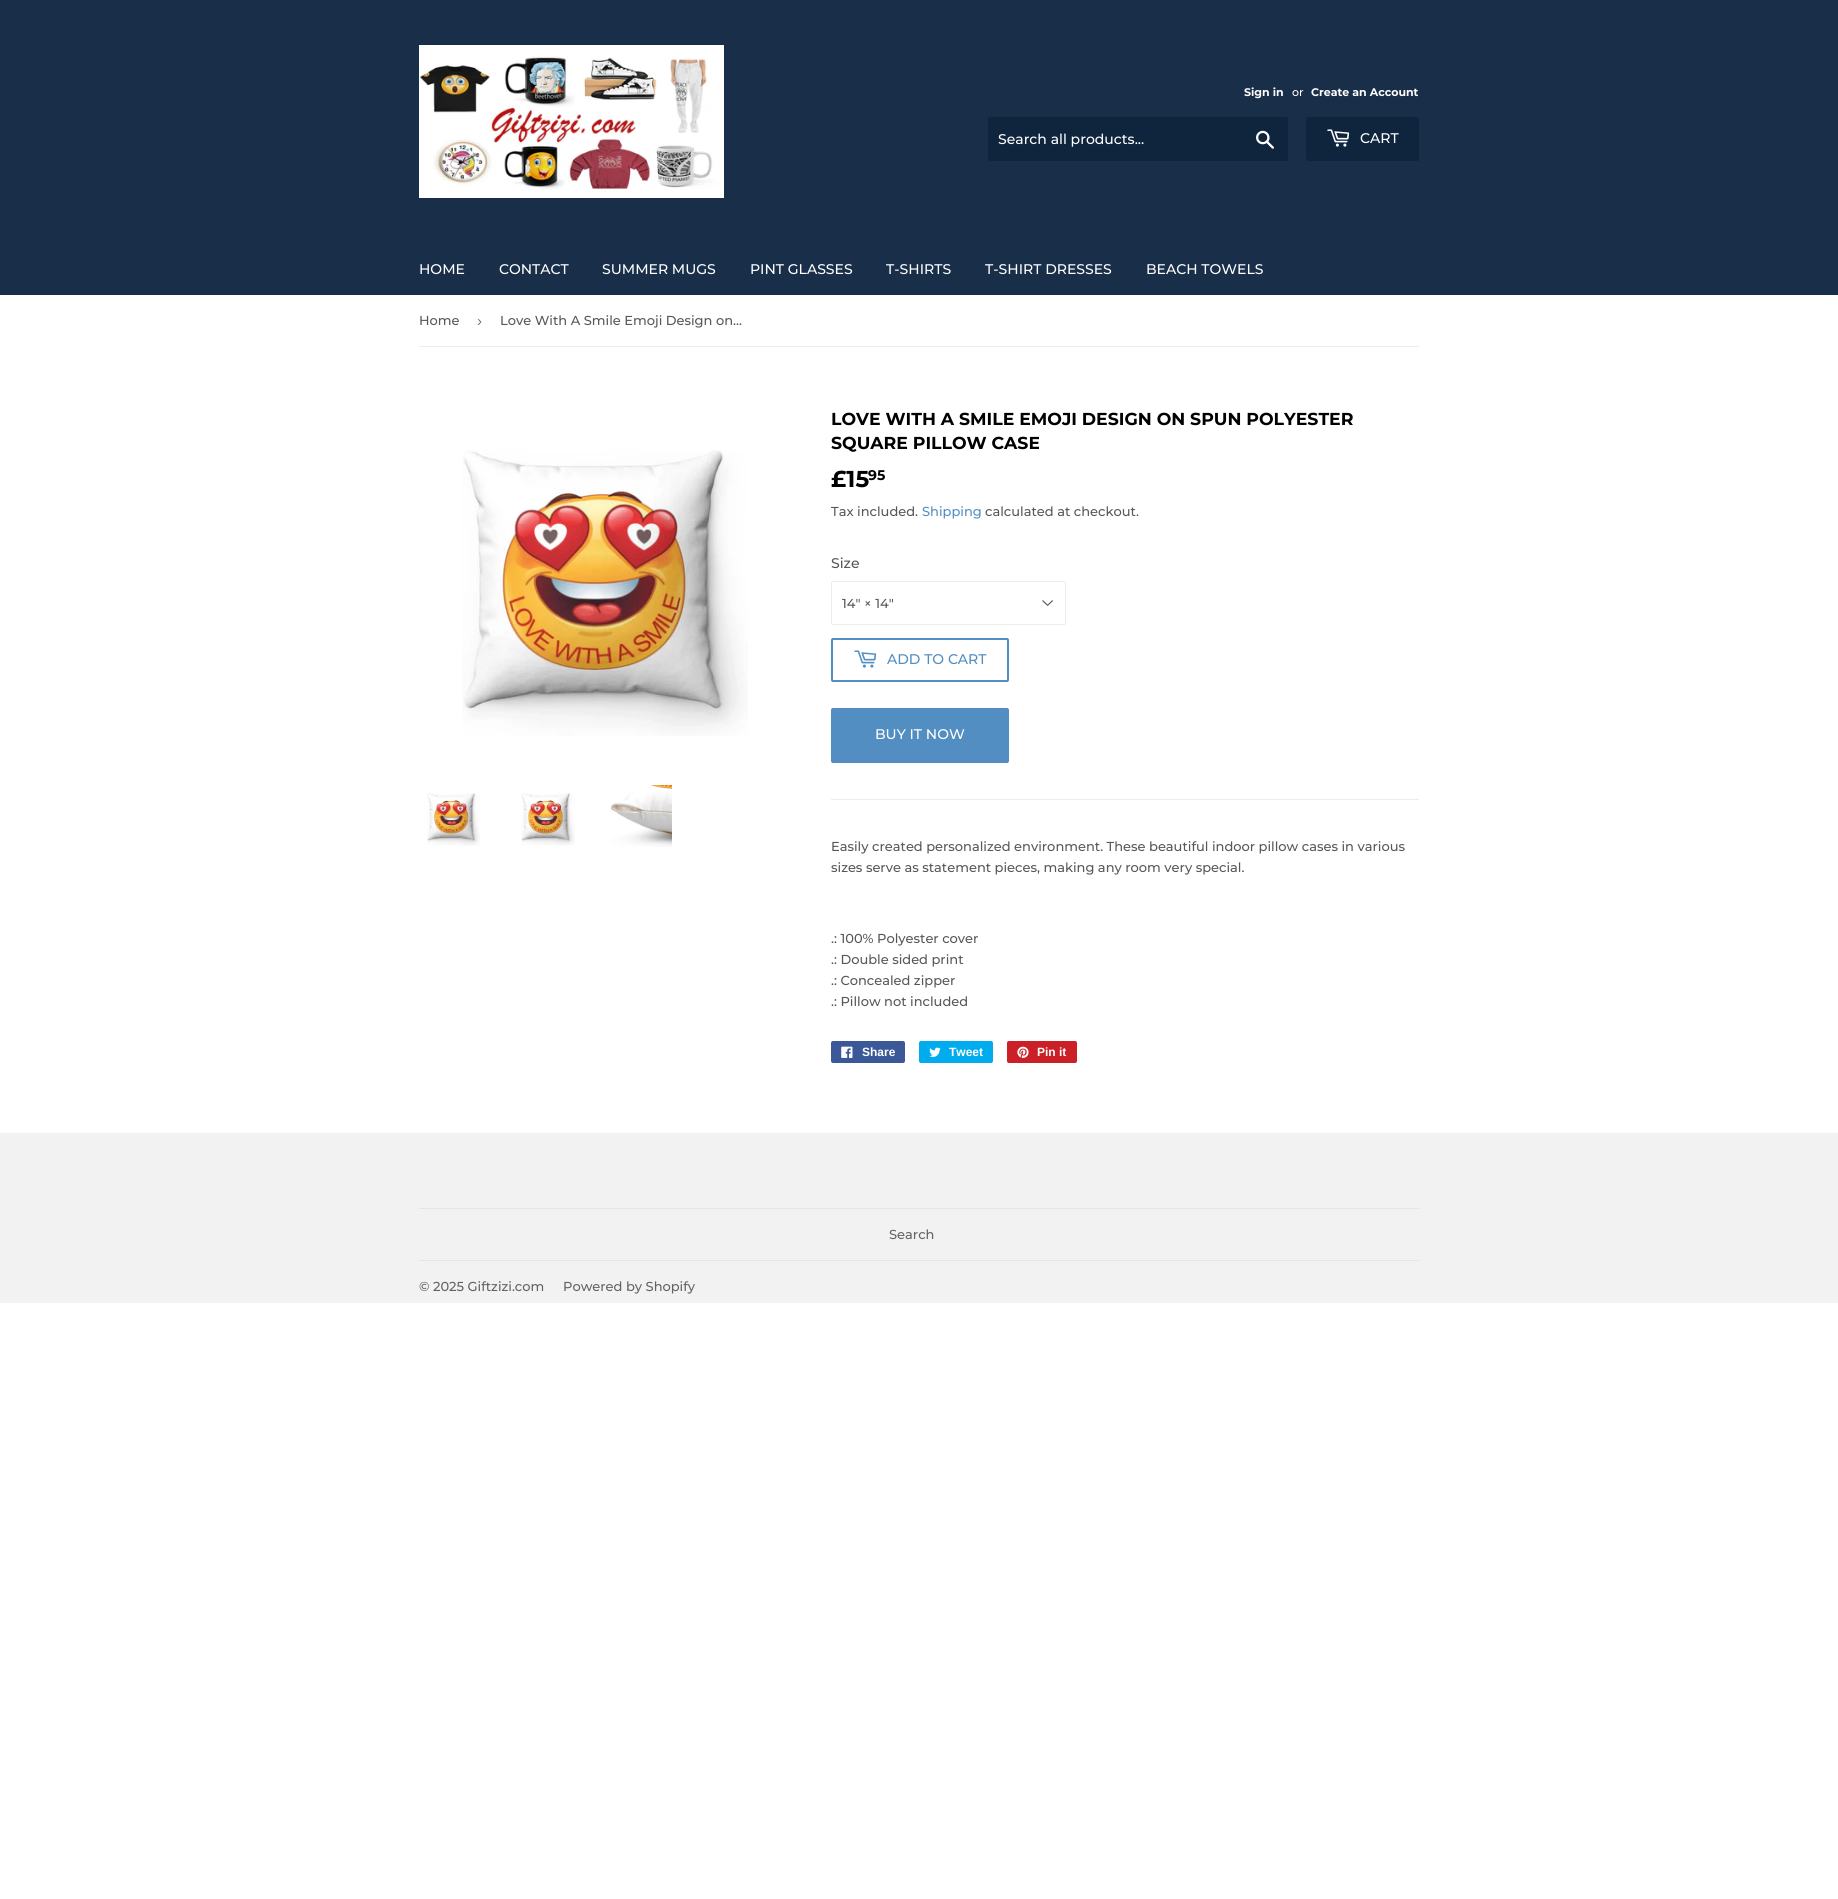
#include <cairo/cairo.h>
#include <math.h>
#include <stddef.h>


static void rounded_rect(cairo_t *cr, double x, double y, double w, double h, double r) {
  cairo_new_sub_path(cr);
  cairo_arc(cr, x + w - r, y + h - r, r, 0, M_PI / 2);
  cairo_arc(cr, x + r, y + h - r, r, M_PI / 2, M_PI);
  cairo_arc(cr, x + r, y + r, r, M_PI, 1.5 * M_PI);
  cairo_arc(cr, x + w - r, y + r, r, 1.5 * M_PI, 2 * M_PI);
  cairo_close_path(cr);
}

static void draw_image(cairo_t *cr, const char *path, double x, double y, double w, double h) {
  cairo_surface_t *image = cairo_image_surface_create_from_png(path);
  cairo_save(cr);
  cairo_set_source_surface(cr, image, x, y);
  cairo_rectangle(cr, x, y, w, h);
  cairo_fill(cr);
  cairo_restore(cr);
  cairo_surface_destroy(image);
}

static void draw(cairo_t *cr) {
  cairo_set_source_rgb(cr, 1, 1, 1);
  cairo_paint(cr);
  cairo_set_source_rgb(cr, 24 / 255.0, 46 / 255.0, 73 / 255.0);
  cairo_rectangle(cr, 0, 0, 1838, 295);
  cairo_fill(cr);
  draw_image(cr, "images/1.png", 419, 45, 305, 153);
  cairo_set_source_rgb(cr, 15 / 255.0, 36 / 255.0, 61 / 255.0);
  rounded_rect(cr, 988, 117, 300, 44, 2);
  cairo_fill(cr);
  draw_image(cr, "images/2.png", 1256, 130, 18, 19);
  rounded_rect(cr, 1306, 117, 113, 44, 2);
  cairo_fill(cr);
  draw_image(cr, "images/3.png", 1327, 129, 23, 18);
  cairo_set_source_rgb(cr, 236 / 255.0, 236 / 255.0, 236 / 255.0);
  cairo_rectangle(cr, 419, 346, 1000, 1);
  cairo_fill(cr);
  draw_image(cr, "images/4.png", 462, 450, 286, 286);
  draw_image(cr, "images/5.png", 427, 793, 53, 53);
  draw_image(cr, "images/6.png", 521, 793, 54, 53);
  draw_image(cr, "images/7.png", 610, 785, 62, 62);
  draw_image(cr, "images/8.png", 1042, 600, 11, 6);
  rounded_rect(cr, 831.5, 581.5, 234, 43, 1.5);
  cairo_set_line_width(cr, 1);
  cairo_stroke(cr);
  rounded_rect(cr, 832, 639, 176, 42, 1);
  cairo_set_source_rgb(cr, 82 / 255.0, 142 / 255.0, 193 / 255.0);
  cairo_set_line_width(cr, 2);
  cairo_stroke(cr);
  draw_image(cr, "images/9.png", 854, 650, 23, 18);
  rounded_rect(cr, 831, 708, 178, 55, 2);
  cairo_fill(cr);
  cairo_set_source_rgb(cr, 236 / 255.0, 236 / 255.0, 236 / 255.0);
  cairo_rectangle(cr, 831, 799, 588, 1);
  cairo_fill(cr);
  cairo_set_source_rgb(cr, 59 / 255.0, 89 / 255.0, 152 / 255.0);
  rounded_rect(cr, 831, 1041, 74, 22, 2);
  cairo_fill(cr);
  draw_image(cr, "images/10.png", 841, 1046, 12, 12);
  cairo_set_source_rgb(cr, 0, 172 / 255.0, 237 / 255.0);
  rounded_rect(cr, 919, 1041, 74, 22, 2);
  cairo_fill(cr);
  draw_image(cr, "images/11.png", 929, 1047, 12, 10);
  cairo_set_source_rgb(cr, 203 / 255.0, 32 / 255.0, 39 / 255.0);
  rounded_rect(cr, 1007, 1041, 70, 22, 2);
  cairo_fill(cr);
  draw_image(cr, "images/12.png", 1017, 1046, 12, 12);
  cairo_set_source_rgb(cr, 242 / 255.0, 242 / 255.0, 242 / 255.0);
  cairo_rectangle(cr, 0, 1133, 1838, 170);
  cairo_fill(cr);
  cairo_set_source_rgb(cr, 229 / 255.0, 229 / 255.0, 229 / 255.0);
  cairo_rectangle(cr, 419, 1208, 1000, 1);
  cairo_fill(cr);
  cairo_rectangle(cr, 419, 1260, 1000, 1);
  cairo_fill(cr);
  cairo_select_font_face(cr, "Montserrat", CAIRO_FONT_SLANT_NORMAL, CAIRO_FONT_WEIGHT_BOLD);
  cairo_set_font_size(cr, 11);
  cairo_set_source_rgb(cr, 1, 1, 1);
  cairo_move_to(cr, 1244, 96);
  cairo_show_text(cr, "Sign in");
  cairo_select_font_face(cr, "Montserrat Medium", CAIRO_FONT_SLANT_NORMAL, CAIRO_FONT_WEIGHT_NORMAL);
  cairo_move_to(cr, 1292, 96);
  cairo_show_text(cr, "or");
  cairo_select_font_face(cr, "Montserrat", CAIRO_FONT_SLANT_NORMAL, CAIRO_FONT_WEIGHT_BOLD);
  cairo_move_to(cr, 1311, 96);
  cairo_show_text(cr, "Create an Account");
  cairo_select_font_face(cr, "Montserrat Medium", CAIRO_FONT_SLANT_NORMAL, CAIRO_FONT_WEIGHT_NORMAL);
  cairo_set_font_size(cr, 14);
  cairo_move_to(cr, 998, 144);
  cairo_show_text(cr, "Search all products...");
  cairo_move_to(cr, 1360, 143);
  cairo_show_text(cr, "CART");
  cairo_move_to(cr, 419, 274);
  cairo_show_text(cr, "HOME");
  cairo_move_to(cr, 499, 274);
  cairo_show_text(cr, "CONTACT");
  cairo_move_to(cr, 602, 274);
  cairo_show_text(cr, "SUMMER MUGS");
  cairo_move_to(cr, 750, 274);
  cairo_show_text(cr, "PINT GLASSES");
  cairo_move_to(cr, 886, 274);
  cairo_show_text(cr, "T-SHIRTS");
  cairo_move_to(cr, 985, 274);
  cairo_show_text(cr, "T-SHIRT DRESSES");
  cairo_move_to(cr, 1146, 274);
  cairo_show_text(cr, "BEACH TOWELS");
  cairo_set_font_size(cr, 13);
  cairo_set_source_rgb(cr, 88 / 255.0, 88 / 255.0, 88 / 255.0);
  cairo_move_to(cr, 419, 325);
  cairo_show_text(cr, "Home");
  cairo_select_font_face(cr, "Liberation Sans", CAIRO_FONT_SLANT_NORMAL, CAIRO_FONT_WEIGHT_NORMAL);
  cairo_set_font_size(cr, 15);
  cairo_set_source_rgb(cr, 118 / 255.0, 118 / 255.0, 118 / 255.0);
  cairo_move_to(cr, 477, 326);
  cairo_show_text(cr, "›");
  cairo_select_font_face(cr, "Montserrat Medium", CAIRO_FONT_SLANT_NORMAL, CAIRO_FONT_WEIGHT_NORMAL);
  cairo_set_font_size(cr, 13);
  cairo_set_source_rgb(cr, 88 / 255.0, 88 / 255.0, 88 / 255.0);
  cairo_move_to(cr, 500, 325);
  cairo_show_text(cr, "Love With A Smile Emoji Design on…");
  cairo_select_font_face(cr, "Montserrat", CAIRO_FONT_SLANT_NORMAL, CAIRO_FONT_WEIGHT_BOLD);
  cairo_set_font_size(cr, 17.3);
  cairo_set_source_rgb(cr, 0, 0, 0);
  cairo_move_to(cr, 831, 425);
  cairo_show_text(cr, "LOVE WITH A SMILE EMOJI DESIGN ON SPUN POLYESTER");
  cairo_move_to(cr, 831, 449);
  cairo_show_text(cr, "SQUARE PILLOW CASE");
  cairo_set_font_size(cr, 23);
  cairo_move_to(cr, 831, 487);
  cairo_show_text(cr, "£15");
  cairo_set_font_size(cr, 14);
  cairo_move_to(cr, 868, 480);
  cairo_show_text(cr, "95");
  cairo_select_font_face(cr, "Montserrat Medium", CAIRO_FONT_SLANT_NORMAL, CAIRO_FONT_WEIGHT_NORMAL);
  cairo_set_font_size(cr, 13);
  cairo_set_source_rgb(cr, 88 / 255.0, 88 / 255.0, 88 / 255.0);
  cairo_move_to(cr, 831, 516);
  cairo_show_text(cr, "Tax included.");
  cairo_set_source_rgb(cr, 82 / 255.0, 142 / 255.0, 193 / 255.0);
  cairo_move_to(cr, 922, 516);
  cairo_show_text(cr, "Shipping");
  cairo_set_source_rgb(cr, 88 / 255.0, 88 / 255.0, 88 / 255.0);
  cairo_move_to(cr, 985, 516);
  cairo_show_text(cr, "calculated at checkout.");
  cairo_set_font_size(cr, 14);
  cairo_move_to(cr, 831, 568);
  cairo_show_text(cr, "Size");
  cairo_set_font_size(cr, 13);
  cairo_move_to(cr, 842, 608);
  cairo_show_text(cr, "14\" × 14\"");
  cairo_set_font_size(cr, 14);
  cairo_set_source_rgb(cr, 82 / 255.0, 142 / 255.0, 193 / 255.0);
  cairo_move_to(cr, 887, 664);
  cairo_show_text(cr, "ADD TO CART");
  cairo_set_source_rgb(cr, 1, 1, 1);
  cairo_move_to(cr, 875, 739);
  cairo_show_text(cr, "BUY IT NOW");
  cairo_set_font_size(cr, 13);
  cairo_set_source_rgb(cr, 88 / 255.0, 88 / 255.0, 88 / 255.0);
  cairo_move_to(cr, 831, 851);
  cairo_show_text(cr, "Easily created personalized environment. These beautiful indoor pillow cases in various");
  cairo_move_to(cr, 831, 872);
  cairo_show_text(cr, "sizes serve as statement pieces, making any room very special.");
  cairo_move_to(cr, 831, 943);
  cairo_show_text(cr, ".: 100% Polyester cover");
  cairo_move_to(cr, 831, 964);
  cairo_show_text(cr, ".: Double sided print");
  cairo_move_to(cr, 831, 985);
  cairo_show_text(cr, ".: Concealed zipper");
  cairo_move_to(cr, 831, 1006);
  cairo_show_text(cr, ".: Pillow not included");
  cairo_select_font_face(cr, "Liberation Sans", CAIRO_FONT_SLANT_NORMAL, CAIRO_FONT_WEIGHT_BOLD);
  cairo_set_font_size(cr, 12);
  cairo_set_source_rgb(cr, 1, 1, 1);
  cairo_move_to(cr, 862, 1056);
  cairo_show_text(cr, "Share");
  cairo_move_to(cr, 949, 1056);
  cairo_show_text(cr, "Tweet");
  cairo_move_to(cr, 1037, 1056);
  cairo_show_text(cr, "Pin it");
  cairo_select_font_face(cr, "Montserrat Medium", CAIRO_FONT_SLANT_NORMAL, CAIRO_FONT_WEIGHT_NORMAL);
  cairo_set_font_size(cr, 13);
  cairo_set_source_rgb(cr, 99 / 255.0, 99 / 255.0, 99 / 255.0);
  cairo_move_to(cr, 889, 1239);
  cairo_show_text(cr, "Search");
  cairo_move_to(cr, 419, 1291);
  cairo_show_text(cr, "© 2025 Giftzizi.com");
  cairo_move_to(cr, 563, 1291);
  cairo_show_text(cr, "Powered by Shopify");
}

int main(void) {
  cairo_surface_t *surface = cairo_image_surface_create(CAIRO_FORMAT_RGB24, 1838, 1899);
  cairo_t *cr = cairo_create(surface);
  cairo_font_options_t *options = cairo_font_options_create();
  cairo_font_options_set_hint_metrics(options, CAIRO_HINT_METRICS_OFF);
  cairo_font_options_set_hint_style(options, CAIRO_HINT_STYLE_NONE);
  cairo_set_font_options(cr, options);
  cairo_set_miter_limit(cr, 4);
  draw(cr);
  cairo_surface_write_to_png(surface, "out.png");
  cairo_font_options_destroy(options);
  cairo_destroy(cr);
  cairo_surface_destroy(surface);
  return 0;
}
